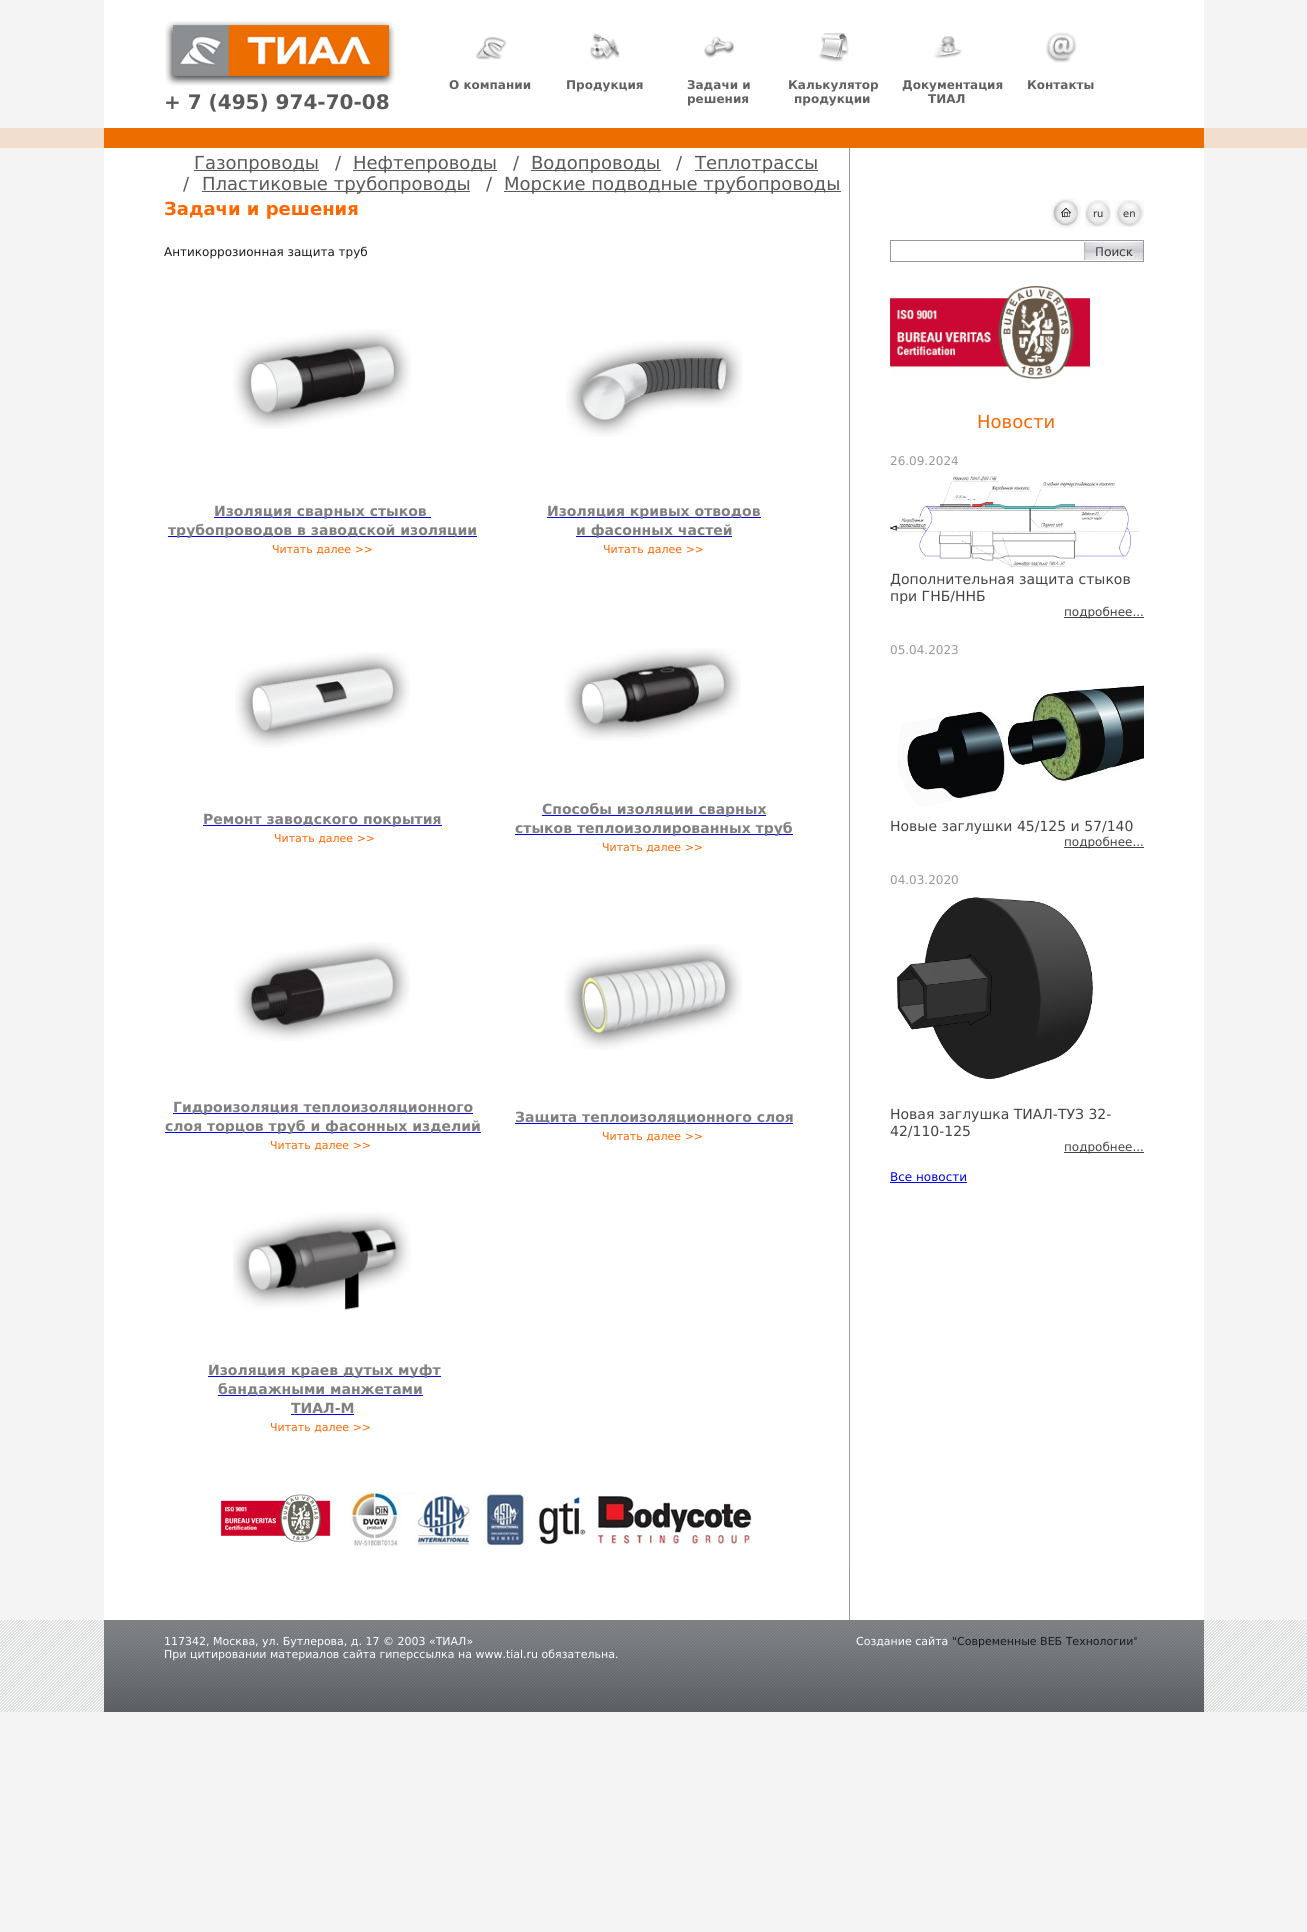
#include <cairo/cairo.h>
#include <math.h>
#include <stddef.h>


static void draw_image(cairo_t *cr, const char *path, double x, double y, double w, double h) {
  cairo_surface_t *image = cairo_image_surface_create_from_png(path);
  cairo_save(cr);
  cairo_set_source_surface(cr, image, x, y);
  cairo_rectangle(cr, x, y, w, h);
  cairo_fill(cr);
  cairo_restore(cr);
  cairo_surface_destroy(image);
}

static void draw(cairo_t *cr) {
  cairo_set_source_rgb(cr, 244 / 255.0, 244 / 255.0, 244 / 255.0);
  cairo_paint(cr);
  cairo_set_source_rgb(cr, 1, 1, 1);
  cairo_rectangle(cr, 104, 0, 1100, 128);
  cairo_fill(cr);
  draw_image(cr, "images/1.png", 165, 21, 230, 65);
  draw_image(cr, "images/2.png", 475, 36, 32, 24);
  draw_image(cr, "images/3.png", 589, 33, 31, 27);
  draw_image(cr, "images/4.png", 704, 36, 31, 22);
  draw_image(cr, "images/5.png", 818, 33, 31, 29);
  draw_image(cr, "images/6.png", 933, 36, 29, 23);
  draw_image(cr, "images/7.png", 1046, 32, 31, 31);
  cairo_set_source_rgb(cr, 241 / 255.0, 222 / 255.0, 206 / 255.0);
  cairo_rectangle(cr, 0, 128, 1307, 20);
  cairo_fill(cr);
  cairo_set_source_rgb(cr, 236 / 255.0, 110 / 255.0, 0);
  cairo_rectangle(cr, 104, 128, 1100, 20);
  cairo_fill(cr);
  cairo_set_source_rgb(cr, 1, 1, 1);
  cairo_rectangle(cr, 104, 148, 1100, 1472);
  cairo_fill(cr);
  cairo_set_source_rgb(cr, 89 / 255.0, 89 / 255.0, 89 / 255.0);
  cairo_rectangle(cr, 194, 170, 125, 1);
  cairo_fill(cr);
  cairo_rectangle(cr, 353, 170, 144, 1);
  cairo_fill(cr);
  cairo_rectangle(cr, 531, 170, 130, 1);
  cairo_fill(cr);
  cairo_rectangle(cr, 695, 170, 123, 1);
  cairo_fill(cr);
  cairo_rectangle(cr, 202, 191, 268, 1);
  cairo_fill(cr);
  cairo_rectangle(cr, 504, 191, 337, 1);
  cairo_fill(cr);
  cairo_set_source_rgb(cr, 153 / 255.0, 153 / 255.0, 153 / 255.0);
  cairo_rectangle(cr, 849, 1570, 1, 51);
  cairo_fill(cr);
  cairo_set_source_rgb(cr, 159 / 255.0, 159 / 255.0, 159 / 255.0);
  cairo_rectangle(cr, 849, 198, 1, 1373);
  cairo_fill(cr);
  cairo_set_source_rgb(cr, 153 / 255.0, 153 / 255.0, 153 / 255.0);
  cairo_rectangle(cr, 849, 148, 1, 51);
  cairo_fill(cr);
  draw_image(cr, "images/8.png", 233, 329, 178, 100);
  draw_image(cr, "images/9.png", 566, 340, 177, 97);
  cairo_set_source_rgb(cr, 0, 0, 238 / 255.0);
  cairo_rectangle(cr, 214, 517, 217, 1);
  cairo_fill(cr);
  cairo_rectangle(cr, 168, 536, 309, 1);
  cairo_fill(cr);
  cairo_rectangle(cr, 547, 517, 214, 1);
  cairo_fill(cr);
  cairo_rectangle(cr, 576, 536, 156, 1);
  cairo_fill(cr);
  draw_image(cr, "images/10.png", 235, 652, 175, 96);
  draw_image(cr, "images/11.png", 564, 648, 177, 93);
  cairo_rectangle(cr, 203, 825, 239, 1);
  cairo_fill(cr);
  cairo_rectangle(cr, 542, 815, 224, 1);
  cairo_fill(cr);
  cairo_rectangle(cr, 515, 834, 278, 1);
  cairo_fill(cr);
  draw_image(cr, "images/12.png", 234, 942, 176, 99);
  draw_image(cr, "images/13.png", 564, 944, 178, 106);
  cairo_rectangle(cr, 173, 1113, 300, 1);
  cairo_fill(cr);
  cairo_rectangle(cr, 165, 1132, 316, 1);
  cairo_fill(cr);
  cairo_rectangle(cr, 515, 1123, 278, 1);
  cairo_fill(cr);
  draw_image(cr, "images/14.png", 233, 1212, 178, 98);
  cairo_rectangle(cr, 208, 1376, 233, 1);
  cairo_fill(cr);
  cairo_rectangle(cr, 218, 1395, 205, 1);
  cairo_fill(cr);
  cairo_rectangle(cr, 291, 1414, 63, 1);
  cairo_fill(cr);
  draw_image(cr, "images/15.png", 220, 1492, 532, 55);
  draw_image(cr, "images/16.png", 1051, 198, 30, 30);
  draw_image(cr, "images/17.png", 1085, 200, 26, 27);
  draw_image(cr, "images/18.png", 1115, 200, 29, 27);
  cairo_rectangle(cr, 890.5, 240.5, 253, 21);
  cairo_set_source_rgb(cr, 153 / 255.0, 153 / 255.0, 153 / 255.0);
  cairo_set_line_width(cr, 1);
  cairo_stroke(cr);
  draw_image(cr, "images/19.png", 1084, 242, 59, 18);
  draw_image(cr, "images/20.png", 890, 286, 200, 93);
  draw_image(cr, "images/21.png", 890, 476, 250, 91);
  cairo_set_source_rgb(cr, 68 / 255.0, 68 / 255.0, 68 / 255.0);
  cairo_rectangle(cr, 1064, 617, 80, 1);
  cairo_fill(cr);
  draw_image(cr, "images/22.png", 898, 685, 246, 121);
  cairo_rectangle(cr, 1064, 847, 80, 1);
  cairo_fill(cr);
  draw_image(cr, "images/23.png", 897, 897, 196, 183);
  cairo_rectangle(cr, 1064, 1152, 80, 1);
  cairo_fill(cr);
  cairo_set_source_rgb(cr, 0, 0, 238 / 255.0);
  cairo_rectangle(cr, 890, 1182, 77, 1);
  cairo_fill(cr);
  cairo_set_source_rgb(cr, 222 / 255.0, 223 / 255.0, 223 / 255.0);
  cairo_rectangle(cr, 0, 1620, 1307, 92);
  cairo_fill(cr);
  draw_image(cr, "images/24.png", 0, 1620, 1307, 92);
  draw_image(cr, "images/25.png", 104, 1620, 1100, 92);
  cairo_select_font_face(cr, "DejaVu Sans", CAIRO_FONT_SLANT_NORMAL, CAIRO_FONT_WEIGHT_BOLD);
  cairo_set_font_size(cr, 20);
  cairo_set_source_rgb(cr, 89 / 255.0, 89 / 255.0, 89 / 255.0);
  cairo_move_to(cr, 164, 109);
  cairo_show_text(cr, "+ 7 (495) 974-70-08");
  cairo_set_font_size(cr, 12);
  cairo_set_source_rgb(cr, 97 / 255.0, 97 / 255.0, 97 / 255.0);
  cairo_move_to(cr, 449, 89);
  cairo_show_text(cr, "О компании");
  cairo_move_to(cr, 566, 89);
  cairo_show_text(cr, "Продукция");
  cairo_move_to(cr, 687, 89);
  cairo_show_text(cr, "Задачи и");
  cairo_move_to(cr, 687, 103);
  cairo_show_text(cr, "решения");
  cairo_move_to(cr, 788, 89);
  cairo_show_text(cr, "Калькулятор");
  cairo_move_to(cr, 794, 103);
  cairo_show_text(cr, "продукции");
  cairo_move_to(cr, 902, 89);
  cairo_show_text(cr, "Документация");
  cairo_move_to(cr, 928, 103);
  cairo_show_text(cr, "ТИАЛ");
  cairo_move_to(cr, 1027, 89);
  cairo_show_text(cr, "Контакты");
  cairo_select_font_face(cr, "DejaVu Sans", CAIRO_FONT_SLANT_NORMAL, CAIRO_FONT_WEIGHT_NORMAL);
  cairo_set_font_size(cr, 18);
  cairo_set_source_rgb(cr, 89 / 255.0, 89 / 255.0, 89 / 255.0);
  cairo_move_to(cr, 194, 169);
  cairo_show_text(cr, "Газопроводы");
  cairo_move_to(cr, 335, 169);
  cairo_show_text(cr, "/");
  cairo_move_to(cr, 353, 169);
  cairo_show_text(cr, "Нефтепроводы");
  cairo_move_to(cr, 513, 169);
  cairo_show_text(cr, "/");
  cairo_move_to(cr, 531, 169);
  cairo_show_text(cr, "Водопроводы");
  cairo_move_to(cr, 676, 169);
  cairo_show_text(cr, "/");
  cairo_move_to(cr, 695, 169);
  cairo_show_text(cr, "Теплотрассы");
  cairo_move_to(cr, 183, 190);
  cairo_show_text(cr, "/");
  cairo_move_to(cr, 202, 190);
  cairo_show_text(cr, "Пластиковые трубопроводы");
  cairo_move_to(cr, 486, 190);
  cairo_show_text(cr, "/");
  cairo_move_to(cr, 504, 190);
  cairo_show_text(cr, "Морские подводные трубопроводы");
  cairo_select_font_face(cr, "DejaVu Sans", CAIRO_FONT_SLANT_NORMAL, CAIRO_FONT_WEIGHT_BOLD);
  cairo_set_source_rgb(cr, 1, 102 / 255.0, 0);
  cairo_move_to(cr, 164, 215);
  cairo_show_text(cr, "Задачи и решения");
  cairo_select_font_face(cr, "DejaVu Sans", CAIRO_FONT_SLANT_NORMAL, CAIRO_FONT_WEIGHT_NORMAL);
  cairo_set_font_size(cr, 12);
  cairo_set_source_rgb(cr, 26 / 255.0, 26 / 255.0, 26 / 255.0);
  cairo_move_to(cr, 164, 256);
  cairo_show_text(cr, "Антикоррозионная защита труб");
  cairo_select_font_face(cr, "DejaVu Sans", CAIRO_FONT_SLANT_NORMAL, CAIRO_FONT_WEIGHT_BOLD);
  cairo_set_font_size(cr, 14);
  cairo_set_source_rgb(cr, 128 / 255.0, 128 / 255.0, 128 / 255.0);
  cairo_move_to(cr, 214, 516);
  cairo_show_text(cr, "Изоляция сварных стыков");
  cairo_move_to(cr, 168, 535);
  cairo_show_text(cr, "трубопроводов в заводской изоляции");
  cairo_select_font_face(cr, "DejaVu Sans", CAIRO_FONT_SLANT_NORMAL, CAIRO_FONT_WEIGHT_NORMAL);
  cairo_set_font_size(cr, 11);
  cairo_set_source_rgb(cr, 1, 102 / 255.0, 0);
  cairo_move_to(cr, 272, 553);
  cairo_show_text(cr, "Читать далее >>");
  cairo_select_font_face(cr, "DejaVu Sans", CAIRO_FONT_SLANT_NORMAL, CAIRO_FONT_WEIGHT_BOLD);
  cairo_set_font_size(cr, 14);
  cairo_set_source_rgb(cr, 128 / 255.0, 128 / 255.0, 128 / 255.0);
  cairo_move_to(cr, 547, 516);
  cairo_show_text(cr, "Изоляция кривых отводов");
  cairo_move_to(cr, 576, 535);
  cairo_show_text(cr, "и фасонных частей");
  cairo_select_font_face(cr, "DejaVu Sans", CAIRO_FONT_SLANT_NORMAL, CAIRO_FONT_WEIGHT_NORMAL);
  cairo_set_font_size(cr, 11);
  cairo_set_source_rgb(cr, 1, 102 / 255.0, 0);
  cairo_move_to(cr, 603, 553);
  cairo_show_text(cr, "Читать далее >>");
  cairo_select_font_face(cr, "DejaVu Sans", CAIRO_FONT_SLANT_NORMAL, CAIRO_FONT_WEIGHT_BOLD);
  cairo_set_font_size(cr, 14);
  cairo_set_source_rgb(cr, 128 / 255.0, 128 / 255.0, 128 / 255.0);
  cairo_move_to(cr, 203, 824);
  cairo_show_text(cr, "Ремонт заводского покрытия");
  cairo_select_font_face(cr, "DejaVu Sans", CAIRO_FONT_SLANT_NORMAL, CAIRO_FONT_WEIGHT_NORMAL);
  cairo_set_font_size(cr, 11);
  cairo_set_source_rgb(cr, 1, 102 / 255.0, 0);
  cairo_move_to(cr, 274, 842);
  cairo_show_text(cr, "Читать далее >>");
  cairo_select_font_face(cr, "DejaVu Sans", CAIRO_FONT_SLANT_NORMAL, CAIRO_FONT_WEIGHT_BOLD);
  cairo_set_font_size(cr, 14);
  cairo_set_source_rgb(cr, 128 / 255.0, 128 / 255.0, 128 / 255.0);
  cairo_move_to(cr, 542, 814);
  cairo_show_text(cr, "Способы изоляции сварных");
  cairo_move_to(cr, 515, 833);
  cairo_show_text(cr, "стыков теплоизолированных труб");
  cairo_select_font_face(cr, "DejaVu Sans", CAIRO_FONT_SLANT_NORMAL, CAIRO_FONT_WEIGHT_NORMAL);
  cairo_set_font_size(cr, 11);
  cairo_set_source_rgb(cr, 1, 102 / 255.0, 0);
  cairo_move_to(cr, 602, 851);
  cairo_show_text(cr, "Читать далее >>");
  cairo_select_font_face(cr, "DejaVu Sans", CAIRO_FONT_SLANT_NORMAL, CAIRO_FONT_WEIGHT_BOLD);
  cairo_set_font_size(cr, 14);
  cairo_set_source_rgb(cr, 128 / 255.0, 128 / 255.0, 128 / 255.0);
  cairo_move_to(cr, 173, 1112);
  cairo_show_text(cr, "Гидроизоляция теплоизоляционного");
  cairo_move_to(cr, 165, 1131);
  cairo_show_text(cr, "слоя торцов труб и фасонных изделий");
  cairo_select_font_face(cr, "DejaVu Sans", CAIRO_FONT_SLANT_NORMAL, CAIRO_FONT_WEIGHT_NORMAL);
  cairo_set_font_size(cr, 11);
  cairo_set_source_rgb(cr, 1, 102 / 255.0, 0);
  cairo_move_to(cr, 270, 1149);
  cairo_show_text(cr, "Читать далее >>");
  cairo_select_font_face(cr, "DejaVu Sans", CAIRO_FONT_SLANT_NORMAL, CAIRO_FONT_WEIGHT_BOLD);
  cairo_set_font_size(cr, 14);
  cairo_set_source_rgb(cr, 128 / 255.0, 128 / 255.0, 128 / 255.0);
  cairo_move_to(cr, 515, 1122);
  cairo_show_text(cr, "Защита теплоизоляционного слоя");
  cairo_select_font_face(cr, "DejaVu Sans", CAIRO_FONT_SLANT_NORMAL, CAIRO_FONT_WEIGHT_NORMAL);
  cairo_set_font_size(cr, 11);
  cairo_set_source_rgb(cr, 1, 102 / 255.0, 0);
  cairo_move_to(cr, 602, 1140);
  cairo_show_text(cr, "Читать далее >>");
  cairo_select_font_face(cr, "DejaVu Sans", CAIRO_FONT_SLANT_NORMAL, CAIRO_FONT_WEIGHT_BOLD);
  cairo_set_font_size(cr, 14);
  cairo_set_source_rgb(cr, 128 / 255.0, 128 / 255.0, 128 / 255.0);
  cairo_move_to(cr, 208, 1375);
  cairo_show_text(cr, "Изоляция краев дутых муфт");
  cairo_move_to(cr, 218, 1394);
  cairo_show_text(cr, "бандажными манжетами");
  cairo_move_to(cr, 291, 1413);
  cairo_show_text(cr, "ТИАЛ-М");
  cairo_select_font_face(cr, "DejaVu Sans", CAIRO_FONT_SLANT_NORMAL, CAIRO_FONT_WEIGHT_NORMAL);
  cairo_set_font_size(cr, 11);
  cairo_set_source_rgb(cr, 1, 102 / 255.0, 0);
  cairo_move_to(cr, 270, 1431);
  cairo_show_text(cr, "Читать далее >>");
  cairo_set_font_size(cr, 10);
  cairo_set_source_rgb(cr, 51 / 255.0, 51 / 255.0, 51 / 255.0);
  cairo_move_to(cr, 1093, 217);
  cairo_show_text(cr, "ru");
  cairo_move_to(cr, 1123, 217);
  cairo_show_text(cr, "en");
  cairo_set_font_size(cr, 18);
  cairo_set_source_rgb(cr, 1, 102 / 255.0, 0);
  cairo_move_to(cr, 977, 428);
  cairo_show_text(cr, "Новости");
  cairo_set_font_size(cr, 12);
  cairo_set_source_rgb(cr, 153 / 255.0, 153 / 255.0, 153 / 255.0);
  cairo_move_to(cr, 890, 465);
  cairo_show_text(cr, "26.09.2024");
  cairo_set_font_size(cr, 14);
  cairo_set_source_rgb(cr, 68 / 255.0, 68 / 255.0, 68 / 255.0);
  cairo_move_to(cr, 890, 584);
  cairo_show_text(cr, "Дополнительная защита стыков");
  cairo_move_to(cr, 890, 601);
  cairo_show_text(cr, "при ГНБ/ННБ");
  cairo_set_font_size(cr, 12);
  cairo_move_to(cr, 1064, 616);
  cairo_show_text(cr, "подробнее...");
  cairo_set_source_rgb(cr, 153 / 255.0, 153 / 255.0, 153 / 255.0);
  cairo_move_to(cr, 890, 654);
  cairo_show_text(cr, "05.04.2023");
  cairo_set_font_size(cr, 14);
  cairo_set_source_rgb(cr, 68 / 255.0, 68 / 255.0, 68 / 255.0);
  cairo_move_to(cr, 890, 831);
  cairo_show_text(cr, "Новые заглушки 45/125 и 57/140");
  cairo_set_font_size(cr, 12);
  cairo_move_to(cr, 1064, 846);
  cairo_show_text(cr, "подробнее...");
  cairo_set_source_rgb(cr, 153 / 255.0, 153 / 255.0, 153 / 255.0);
  cairo_move_to(cr, 890, 884);
  cairo_show_text(cr, "04.03.2020");
  cairo_set_font_size(cr, 14);
  cairo_set_source_rgb(cr, 68 / 255.0, 68 / 255.0, 68 / 255.0);
  cairo_move_to(cr, 890, 1119);
  cairo_show_text(cr, "Новая заглушка ТИАЛ-ТУЗ 32-");
  cairo_move_to(cr, 890, 1136);
  cairo_show_text(cr, "42/110-125");
  cairo_set_font_size(cr, 12);
  cairo_move_to(cr, 1064, 1151);
  cairo_show_text(cr, "подробнее...");
  cairo_set_source_rgb(cr, 0, 0, 238 / 255.0);
  cairo_move_to(cr, 890, 1181);
  cairo_show_text(cr, "Все новости");
  cairo_set_font_size(cr, 11);
  cairo_set_source_rgb(cr, 1, 1, 1);
  cairo_move_to(cr, 164, 1645);
  cairo_show_text(cr, "117342, Москва, ул. Бутлерова, д. 17 © 2003 «ТИАЛ»");
  cairo_move_to(cr, 164, 1658);
  cairo_show_text(cr, "При цитировании материалов сайта гиперссылка на www.tial.ru обязательна.");
  cairo_move_to(cr, 856, 1645);
  cairo_show_text(cr, "Создание сайта");
  cairo_set_source_rgb(cr, 26 / 255.0, 26 / 255.0, 26 / 255.0);
  cairo_move_to(cr, 952, 1645);
  cairo_show_text(cr, "\"Современные ВЕБ Технологии\"");
}

int main(void) {
  cairo_surface_t *surface = cairo_image_surface_create(CAIRO_FORMAT_RGB24, 1307, 1932);
  cairo_t *cr = cairo_create(surface);
  cairo_font_options_t *options = cairo_font_options_create();
  cairo_font_options_set_hint_metrics(options, CAIRO_HINT_METRICS_OFF);
  cairo_font_options_set_hint_style(options, CAIRO_HINT_STYLE_NONE);
  cairo_set_font_options(cr, options);
  cairo_set_miter_limit(cr, 4);
  draw(cr);
  cairo_surface_write_to_png(surface, "out.png");
  cairo_font_options_destroy(options);
  cairo_destroy(cr);
  cairo_surface_destroy(surface);
  return 0;
}
